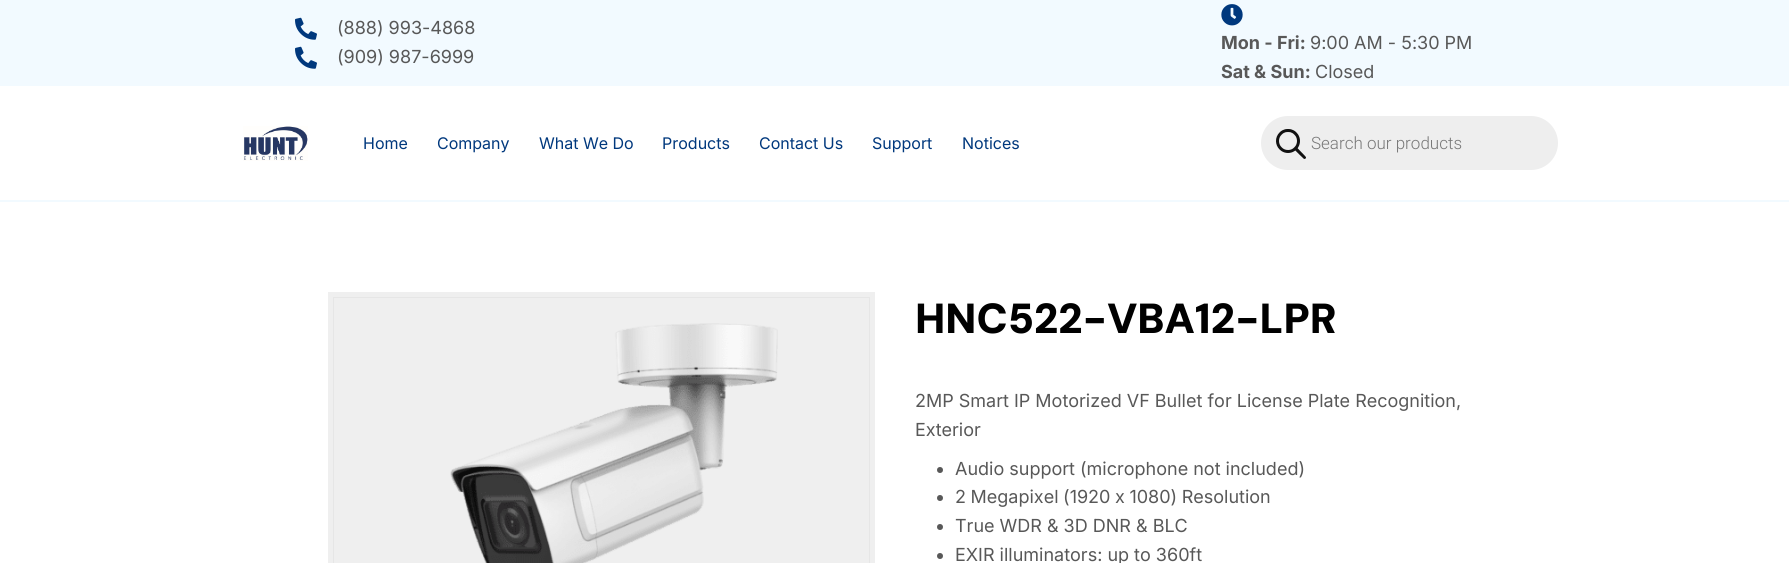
#include <cairo/cairo.h>
#include <math.h>
#include <stddef.h>


static void draw_spaced(cairo_t *cr, double x, double y, const char *s, double letter, double word) {
  cairo_move_to(cr, x, y);
  while (*s) {
    char ch[5] = {0};
    int n = 0;
    do ch[n++] = *s++; while ((*s & 0xC0) == 0x80);
    cairo_show_text(cr, ch);
    cairo_rel_move_to(cr, letter + word * (*ch == ' '), 0);
  }
}

static void rounded_rect(cairo_t *cr, double x, double y, double w, double h, double r) {
  cairo_new_sub_path(cr);
  cairo_arc(cr, x + w - r, y + h - r, r, 0, M_PI / 2);
  cairo_arc(cr, x + r, y + h - r, r, M_PI / 2, M_PI);
  cairo_arc(cr, x + r, y + r, r, M_PI, 1.5 * M_PI);
  cairo_arc(cr, x + w - r, y + r, r, 1.5 * M_PI, 2 * M_PI);
  cairo_close_path(cr);
}

static void draw_image(cairo_t *cr, const char *path, double x, double y, double w, double h) {
  cairo_surface_t *image = cairo_image_surface_create_from_png(path);
  cairo_save(cr);
  cairo_set_source_surface(cr, image, x, y);
  cairo_rectangle(cr, x, y, w, h);
  cairo_fill(cr);
  cairo_restore(cr);
  cairo_surface_destroy(image);
}

static void draw(cairo_t *cr) {
  cairo_set_source_rgb(cr, 1, 1, 1);
  cairo_paint(cr);
  cairo_set_source_rgb(cr, 242 / 255.0, 250 / 255.0, 1);
  cairo_rectangle(cr, 0, 0, 1789, 86);
  cairo_fill(cr);
  draw_image(cr, "images/1.png", 295, 17, 22, 23);
  draw_image(cr, "images/1.png", 295, 46, 22, 23);
  draw_image(cr, "images/2.png", 1221, 4, 22, 22);
  cairo_rectangle(cr, 0, 200, 1789, 2);
  cairo_fill(cr);
  draw_image(cr, "images/3.png", 243, 126, 65, 35);
  cairo_set_source_rgb(cr, 238 / 255.0, 238 / 255.0, 238 / 255.0);
  rounded_rect(cr, 1261, 116, 297, 54, 27);
  cairo_fill(cr);
  draw_image(cr, "images/4.png", 1276, 129, 30, 30);
  cairo_set_source_rgb(cr, 239 / 255.0, 239 / 255.0, 239 / 255.0);
  cairo_rectangle(cr, 328, 292, 547, 271);
  cairo_fill(cr);
  cairo_rectangle(cr, 333.5, 297.5, 536, 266);
  cairo_set_source_rgb(cr, 230 / 255.0, 230 / 255.0, 230 / 255.0);
  cairo_set_line_width(cr, 1);
  cairo_stroke(cr);
  draw_image(cr, "images/5.png", 450, 323, 328, 240);
  cairo_set_source_rgb(cr, 88 / 255.0, 88 / 255.0, 88 / 255.0);
  cairo_arc(cr, 940, 470, 3, 0, 2 * M_PI);
  cairo_fill(cr);
  cairo_arc(cr, 940, 498, 3, 0, 2 * M_PI);
  cairo_fill(cr);
  cairo_arc(cr, 940, 527, 3, 0, 2 * M_PI);
  cairo_fill(cr);
  cairo_arc(cr, 940, 556, 3, 0, 2 * M_PI);
  cairo_fill(cr);
  cairo_select_font_face(cr, "Inter", CAIRO_FONT_SLANT_NORMAL, CAIRO_FONT_WEIGHT_NORMAL);
  cairo_set_font_size(cr, 18);
  cairo_move_to(cr, 337, 34);
  cairo_show_text(cr, "(888) 993-4868");
  cairo_move_to(cr, 337, 63);
  cairo_show_text(cr, "(909) 987-6999");
  cairo_select_font_face(cr, "Inter", CAIRO_FONT_SLANT_NORMAL, CAIRO_FONT_WEIGHT_BOLD);
  cairo_move_to(cr, 1221, 49);
  cairo_show_text(cr, "Mon - Fri:");
  cairo_select_font_face(cr, "Inter", CAIRO_FONT_SLANT_NORMAL, CAIRO_FONT_WEIGHT_NORMAL);
  cairo_move_to(cr, 1310, 49);
  cairo_show_text(cr, "9:00 AM - 5:30 PM");
  cairo_select_font_face(cr, "Inter", CAIRO_FONT_SLANT_NORMAL, CAIRO_FONT_WEIGHT_BOLD);
  cairo_move_to(cr, 1221, 78);
  cairo_show_text(cr, "Sat & Sun:");
  cairo_select_font_face(cr, "Inter", CAIRO_FONT_SLANT_NORMAL, CAIRO_FONT_WEIGHT_NORMAL);
  cairo_move_to(cr, 1315, 78);
  cairo_show_text(cr, "Closed");
  cairo_set_font_size(cr, 16);
  cairo_set_source_rgb(cr, 0, 56 / 255.0, 125 / 255.0);
  cairo_move_to(cr, 363, 149);
  cairo_show_text(cr, "Home");
  cairo_move_to(cr, 437, 149);
  cairo_show_text(cr, "Company");
  cairo_move_to(cr, 539, 149);
  cairo_show_text(cr, "What We Do");
  cairo_move_to(cr, 662, 149);
  cairo_show_text(cr, "Products");
  cairo_move_to(cr, 759, 149);
  cairo_show_text(cr, "Contact Us");
  cairo_move_to(cr, 872, 149);
  cairo_show_text(cr, "Support");
  cairo_move_to(cr, 962, 149);
  cairo_show_text(cr, "Notices");
  cairo_select_font_face(cr, "Roboto Light", CAIRO_FONT_SLANT_NORMAL, CAIRO_FONT_WEIGHT_NORMAL);
  cairo_set_font_size(cr, 17);
  cairo_set_source_rgb(cr, 119 / 255.0, 119 / 255.0, 119 / 255.0);
  cairo_move_to(cr, 1311, 149);
  cairo_show_text(cr, "Search our products");
  cairo_select_font_face(cr, "DM Sans Black", CAIRO_FONT_SLANT_NORMAL, CAIRO_FONT_WEIGHT_NORMAL);
  cairo_set_font_size(cr, 42);
  cairo_set_source_rgb(cr, 0, 0, 0);
  cairo_move_to(cr, 915, 333);
  cairo_show_text(cr, "HNC522-VBA12-LPR");
  cairo_select_font_face(cr, "Inter", CAIRO_FONT_SLANT_NORMAL, CAIRO_FONT_WEIGHT_NORMAL);
  cairo_set_font_size(cr, 18);
  cairo_set_source_rgb(cr, 88 / 255.0, 88 / 255.0, 88 / 255.0);
  cairo_move_to(cr, 915, 407);
  cairo_show_text(cr, "2MP Smart IP Motorized VF Bullet for License Plate Recognition,");
  cairo_move_to(cr, 915, 436);
  cairo_show_text(cr, "Exterior");
  cairo_move_to(cr, 955, 475);
  cairo_show_text(cr, "Audio support (microphone not included)");
  draw_spaced(cr, 955, 503, "2 Megapixel (1920 x 1080) Resolution", 0, -0.5);
  cairo_move_to(cr, 955, 532);
  cairo_show_text(cr, "True WDR & 3D DNR & BLC");
  cairo_move_to(cr, 955, 561);
  cairo_show_text(cr, "EXIR illuminators: up to 360ft");
}

int main(void) {
  cairo_surface_t *surface = cairo_image_surface_create(CAIRO_FORMAT_RGB24, 1789, 563);
  cairo_t *cr = cairo_create(surface);
  cairo_font_options_t *options = cairo_font_options_create();
  cairo_font_options_set_hint_metrics(options, CAIRO_HINT_METRICS_OFF);
  cairo_font_options_set_hint_style(options, CAIRO_HINT_STYLE_NONE);
  cairo_set_font_options(cr, options);
  cairo_set_miter_limit(cr, 4);
  draw(cr);
  cairo_surface_write_to_png(surface, "out.png");
  cairo_font_options_destroy(options);
  cairo_destroy(cr);
  cairo_surface_destroy(surface);
  return 0;
}
